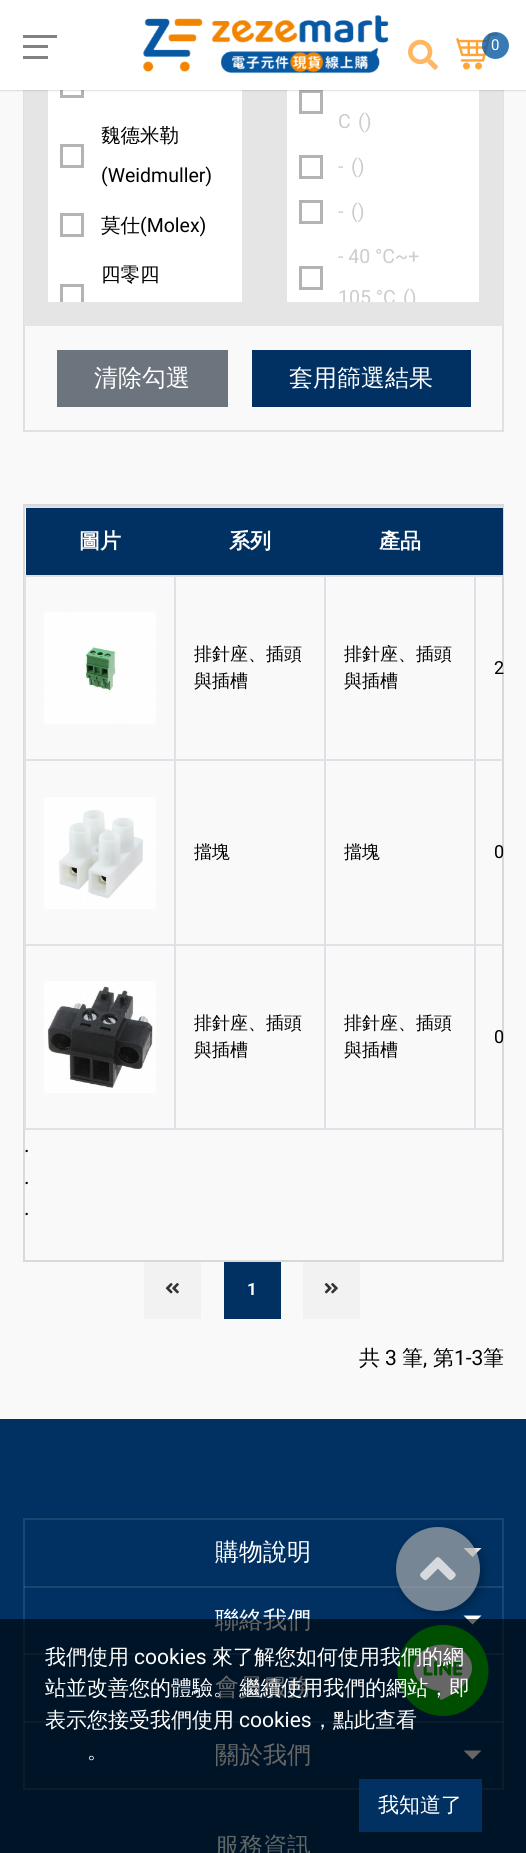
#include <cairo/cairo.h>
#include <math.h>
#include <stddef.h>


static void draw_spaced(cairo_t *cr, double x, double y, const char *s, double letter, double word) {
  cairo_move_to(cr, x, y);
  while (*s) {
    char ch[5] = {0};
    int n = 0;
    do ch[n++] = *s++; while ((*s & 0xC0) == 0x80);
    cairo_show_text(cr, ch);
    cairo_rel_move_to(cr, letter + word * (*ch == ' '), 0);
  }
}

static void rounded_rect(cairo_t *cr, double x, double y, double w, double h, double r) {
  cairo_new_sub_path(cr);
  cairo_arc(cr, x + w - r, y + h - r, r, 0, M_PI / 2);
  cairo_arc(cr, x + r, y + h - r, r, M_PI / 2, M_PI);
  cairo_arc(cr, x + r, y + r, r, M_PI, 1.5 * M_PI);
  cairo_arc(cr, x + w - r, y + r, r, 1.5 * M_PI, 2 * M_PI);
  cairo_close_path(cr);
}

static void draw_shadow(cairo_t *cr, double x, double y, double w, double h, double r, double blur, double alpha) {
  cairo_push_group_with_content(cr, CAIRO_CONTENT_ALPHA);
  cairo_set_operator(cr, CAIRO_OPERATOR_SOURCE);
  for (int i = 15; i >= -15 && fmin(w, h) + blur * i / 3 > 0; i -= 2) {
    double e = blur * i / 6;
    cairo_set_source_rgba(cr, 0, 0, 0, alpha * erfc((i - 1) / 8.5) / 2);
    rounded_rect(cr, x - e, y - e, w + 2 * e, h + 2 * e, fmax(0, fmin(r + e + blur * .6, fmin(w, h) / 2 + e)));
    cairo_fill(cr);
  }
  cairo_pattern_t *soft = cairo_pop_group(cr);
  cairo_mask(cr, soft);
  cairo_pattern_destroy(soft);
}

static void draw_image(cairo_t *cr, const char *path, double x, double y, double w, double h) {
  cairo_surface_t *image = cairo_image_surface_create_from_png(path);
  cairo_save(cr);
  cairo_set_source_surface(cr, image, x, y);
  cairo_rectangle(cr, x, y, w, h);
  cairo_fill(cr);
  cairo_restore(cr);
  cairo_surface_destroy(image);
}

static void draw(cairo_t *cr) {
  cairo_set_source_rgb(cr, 249 / 255.0, 249 / 255.0, 249 / 255.0);
  cairo_paint(cr);
  cairo_rectangle(cr, 24, -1, 479, 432);
  cairo_set_source_rgb(cr, 222 / 255.0, 226 / 255.0, 230 / 255.0);
  cairo_stroke(cr);
  cairo_set_source_rgb(cr, 229 / 255.0, 229 / 255.0, 229 / 255.0);
  cairo_rectangle(cr, 24, 90, 479, 236);
  cairo_fill(cr);
  cairo_set_source_rgb(cr, 1, 1, 1);
  cairo_rectangle(cr, 48, 90, 194, 212);
  cairo_fill(cr);
  cairo_rectangle(cr, 61.5, 75.5, 21, 21);
  cairo_set_source_rgb(cr, 179 / 255.0, 179 / 255.0, 179 / 255.0);
  cairo_set_line_width(cr, 3);
  cairo_stroke(cr);
  cairo_set_source_rgb(cr, 1, 1, 1);
  cairo_rectangle(cr, 287, 90, 192, 212);
  cairo_fill(cr);
  cairo_rectangle(cr, 300.5, 91.5, 21, 21);
  cairo_set_source_rgb(cr, 179 / 255.0, 179 / 255.0, 179 / 255.0);
  cairo_stroke(cr);
  cairo_set_source_rgb(cr, 0, 0, 0);
  draw_shadow(cr, 0, 0, 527, 90, 0, 1, 0.3);
  cairo_set_source_rgb(cr, 1, 1, 1);
  cairo_rectangle(cr, 0, 0, 526, 90);
  cairo_fill(cr);
  cairo_set_source_rgb(cr, 132 / 255.0, 128 / 255.0, 128 / 255.0);
  cairo_rectangle(cr, 23, 45, 25, 3);
  cairo_fill(cr);
  cairo_rectangle(cr, 23, 35, 34, 3);
  cairo_fill(cr);
  cairo_rectangle(cr, 23, 56, 25, 3);
  cairo_fill(cr);
  draw_image(cr, "images/1.png", 142, 15, 247, 59);
  draw_image(cr, "images/2.png", 408, 39, 30, 31);
  draw_image(cr, "images/3.png", 456, 33, 43, 37);
  cairo_set_source_rgba(cr, 8 / 255.0, 89 / 255.0, 163 / 255.0, 0.8);
  cairo_arc(cr, 495.5, 45.5, 13.5, 0, 2 * M_PI);
  cairo_fill(cr);
  cairo_rectangle(cr, 61.5, 145.5, 21, 21);
  cairo_set_source_rgb(cr, 179 / 255.0, 179 / 255.0, 179 / 255.0);
  cairo_stroke(cr);
  cairo_rectangle(cr, 61.5, 214.5, 21, 21);
  cairo_stroke(cr);
  cairo_save(cr);
  cairo_rectangle(cr, 48, 0, 194, 302);
  cairo_clip(cr);
  cairo_rectangle(cr, 61.5, 285.5, 21, 21);
  cairo_stroke(cr);
  cairo_restore(cr);
  cairo_rectangle(cr, 300.5, 156.5, 21, 21);
  cairo_stroke(cr);
  cairo_rectangle(cr, 300.5, 201.5, 21, 21);
  cairo_stroke(cr);
  cairo_rectangle(cr, 300.5, 267.5, 21, 21);
  cairo_stroke(cr);
  cairo_set_source_rgb(cr, 108 / 255.0, 117 / 255.0, 125 / 255.0);
  cairo_rectangle(cr, 57, 350, 171, 57);
  cairo_fill(cr);
  cairo_set_source_rgb(cr, 0, 49 / 255.0, 98 / 255.0);
  cairo_rectangle(cr, 252, 350, 219, 57);
  cairo_fill(cr);
  cairo_rectangle(cr, 24, 505, 479, 756);
  cairo_set_source_rgb(cr, 217 / 255.0, 217 / 255.0, 217 / 255.0);
  cairo_set_line_width(cr, 2);
  cairo_stroke(cr);
  cairo_set_source_rgb(cr, 0, 49 / 255.0, 98 / 255.0);
  cairo_rectangle(cr, 26, 508, 477, 67);
  cairo_fill(cr);
  cairo_set_source_rgb(cr, 222 / 255.0, 226 / 255.0, 230 / 255.0);
  cairo_rectangle(cr, 24, 506, 479, 2);
  cairo_fill(cr);
  cairo_rectangle(cr, 474, 575, 29, 2);
  cairo_fill(cr);
  cairo_rectangle(cr, 474, 759, 29, 2);
  cairo_fill(cr);
  cairo_rectangle(cr, 474, 944, 29, 2);
  cairo_fill(cr);
  cairo_rectangle(cr, 474, 1128, 29, 2);
  cairo_fill(cr);
  cairo_rectangle(cr, 474, 944, 2, 186);
  cairo_fill(cr);
  cairo_rectangle(cr, 324, 944, 152, 2);
  cairo_fill(cr);
  cairo_rectangle(cr, 474, 759, 2, 186);
  cairo_fill(cr);
  cairo_rectangle(cr, 324, 759, 152, 2);
  cairo_fill(cr);
  cairo_rectangle(cr, 474, 575, 2, 186);
  cairo_fill(cr);
  cairo_rectangle(cr, 324, 575, 152, 2);
  cairo_fill(cr);
  cairo_rectangle(cr, 324, 1128, 152, 2);
  cairo_fill(cr);
  cairo_rectangle(cr, 324, 944, 2, 186);
  cairo_fill(cr);
  cairo_rectangle(cr, 174, 944, 152, 2);
  cairo_fill(cr);
  cairo_rectangle(cr, 324, 759, 2, 186);
  cairo_fill(cr);
  cairo_rectangle(cr, 174, 759, 152, 2);
  cairo_fill(cr);
  cairo_rectangle(cr, 324, 575, 2, 186);
  cairo_fill(cr);
  cairo_rectangle(cr, 174, 575, 152, 2);
  cairo_fill(cr);
  cairo_rectangle(cr, 174, 1128, 152, 2);
  cairo_fill(cr);
  cairo_rectangle(cr, 174, 944, 2, 186);
  cairo_fill(cr);
  cairo_rectangle(cr, 24, 944, 152, 2);
  cairo_fill(cr);
  cairo_rectangle(cr, 174, 759, 2, 186);
  cairo_fill(cr);
  cairo_rectangle(cr, 24, 759, 152, 2);
  cairo_fill(cr);
  cairo_rectangle(cr, 174, 575, 2, 186);
  cairo_fill(cr);
  cairo_rectangle(cr, 24, 575, 152, 2);
  cairo_fill(cr);
  cairo_rectangle(cr, 24, 1128, 152, 2);
  cairo_fill(cr);
  cairo_rectangle(cr, 24, 944, 2, 186);
  cairo_fill(cr);
  cairo_rectangle(cr, 24, 759, 2, 186);
  cairo_fill(cr);
  cairo_rectangle(cr, 24, 575, 2, 186);
  cairo_fill(cr);
  draw_image(cr, "images/4.png", 44, 612, 112, 112);
  draw_image(cr, "images/5.png", 44, 797, 112, 112);
  draw_image(cr, "images/6.png", 44, 981, 112, 112);
  cairo_set_source_rgb(cr, 242 / 255.0, 242 / 255.0, 242 / 255.0);
  cairo_rectangle(cr, 144, 1262, 57, 57);
  cairo_fill(cr);
  draw_image(cr, "images/7.png", 165, 1283, 14, 11);
  cairo_set_source_rgb(cr, 0, 49 / 255.0, 98 / 255.0);
  cairo_rectangle(cr, 224, 1262, 57, 57);
  cairo_fill(cr);
  cairo_set_source_rgb(cr, 242 / 255.0, 242 / 255.0, 242 / 255.0);
  cairo_rectangle(cr, 303, 1262, 57, 57);
  cairo_fill(cr);
  draw_image(cr, "images/8.png", 324, 1283, 14, 11);
  cairo_set_source_rgb(cr, 0, 49 / 255.0, 98 / 255.0);
  cairo_rectangle(cr, 0, 1419, 526, 434);
  cairo_fill(cr);
  cairo_rectangle(cr, 24, 1519, 479, 270);
  cairo_set_source_rgb(cr, 26 / 255.0, 70 / 255.0, 114 / 255.0);
  cairo_stroke(cr);
  cairo_set_source_rgba(cr, 1, 1, 1, 0.1);
  cairo_rectangle(cr, 24, 1586, 479, 2);
  cairo_fill(cr);
  cairo_set_source_rgb(cr, 1, 1, 1);
  cairo_new_path(cr);
  cairo_move_to(cr, 463.5, 1548);
  cairo_line_to(cr, 481.5, 1548);
  cairo_line_to(cr, 472.5, 1557);
  cairo_close_path(cr);
  cairo_fill(cr);
  cairo_set_source_rgba(cr, 1, 1, 1, 0.1);
  cairo_rectangle(cr, 24, 1653, 479, 2);
  cairo_fill(cr);
  cairo_set_source_rgb(cr, 1, 1, 1);
  cairo_new_path(cr);
  cairo_move_to(cr, 463.5, 1615.5);
  cairo_line_to(cr, 481.5, 1615.5);
  cairo_line_to(cr, 472.5, 1624.5);
  cairo_close_path(cr);
  cairo_fill(cr);
  cairo_set_source_rgba(cr, 1, 1, 1, 0.1);
  cairo_rectangle(cr, 24, 1721, 479, 2);
  cairo_fill(cr);
  cairo_set_source_rgb(cr, 1, 1, 1);
  cairo_new_path(cr);
  cairo_move_to(cr, 463.5, 1750.5);
  cairo_line_to(cr, 481.5, 1750.5);
  cairo_line_to(cr, 472.5, 1759.5);
  cairo_close_path(cr);
  cairo_fill(cr);
  cairo_save(cr);
  cairo_set_fill_rule(cr, CAIRO_FILL_RULE_EVEN_ODD);
  cairo_new_path(cr);
  cairo_move_to(cr, 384, 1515);
  cairo_line_to(cr, 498, 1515);
  cairo_line_to(cr, 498, 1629);
  cairo_line_to(cr, 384, 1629);
  cairo_close_path(cr);
  cairo_move_to(cr, 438, 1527);
  cairo_curve_to(cr, 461, 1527, 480, 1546, 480, 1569);
  cairo_curve_to(cr, 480, 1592, 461, 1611, 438, 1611);
  cairo_curve_to(cr, 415, 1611, 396, 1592, 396, 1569);
  cairo_curve_to(cr, 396, 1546, 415, 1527, 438, 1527);
  cairo_close_path(cr);
  cairo_clip(cr);
  cairo_set_source_rgb(cr, 0, 0, 0);
  draw_shadow(cr, 399, 1530, 84, 84, 42, 4.5, 0.28);
  cairo_restore(cr);
  cairo_set_source_rgba(cr, 170 / 255.0, 170 / 255.0, 170 / 255.0, 0.7);
  cairo_arc(cr, 438, 1569, 42, 0, 2 * M_PI);
  cairo_fill(cr);
  draw_image(cr, "images/9.png", 420, 1557, 36, 24);
  draw_image(cr, "images/10.png", 397, 1625, 92, 91);
  cairo_select_font_face(cr, "Roboto", CAIRO_FONT_SLANT_NORMAL, CAIRO_FONT_WEIGHT_NORMAL);
  cairo_set_font_size(cr, 15);
  cairo_set_source_rgb(cr, 1, 1, 1);
  cairo_move_to(cr, 491, 50);
  cairo_show_text(cr, "0");
  cairo_select_font_face(cr, "WenQuanYi Zen Hei Medium", CAIRO_FONT_SLANT_NORMAL, CAIRO_FONT_WEIGHT_NORMAL);
  cairo_set_font_size(cr, 19.5);
  cairo_set_source_rgb(cr, 0, 0, 0);
  cairo_move_to(cr, 101, 142);
  cairo_show_text(cr, "魏德米勒");
  cairo_select_font_face(cr, "Roboto", CAIRO_FONT_SLANT_NORMAL, CAIRO_FONT_WEIGHT_NORMAL);
  cairo_move_to(cr, 101, 182);
  cairo_show_text(cr, "(Weidmuller)");
  cairo_select_font_face(cr, "WenQuanYi Zen Hei Medium", CAIRO_FONT_SLANT_NORMAL, CAIRO_FONT_WEIGHT_NORMAL);
  cairo_move_to(cr, 101, 232);
  cairo_show_text(cr, "莫仕");
  cairo_select_font_face(cr, "Roboto", CAIRO_FONT_SLANT_NORMAL, CAIRO_FONT_WEIGHT_NORMAL);
  cairo_move_to(cr, 140, 232);
  cairo_show_text(cr, "(Molex)");
  cairo_select_font_face(cr, "WenQuanYi Zen Hei Medium", CAIRO_FONT_SLANT_NORMAL, CAIRO_FONT_WEIGHT_NORMAL);
  cairo_move_to(cr, 101, 281);
  cairo_show_text(cr, "四零四");
  cairo_select_font_face(cr, "Roboto", CAIRO_FONT_SLANT_NORMAL, CAIRO_FONT_WEIGHT_NORMAL);
  cairo_set_source_rgb(cr, 204 / 255.0, 204 / 255.0, 204 / 255.0);
  cairo_move_to(cr, 338, 128);
  cairo_show_text(cr, "C");
  cairo_move_to(cr, 358, 128);
  cairo_show_text(cr, "()");
  cairo_move_to(cr, 338, 173);
  cairo_show_text(cr, "-");
  cairo_move_to(cr, 351, 173);
  cairo_show_text(cr, "()");
  cairo_move_to(cr, 338, 218);
  cairo_show_text(cr, "-");
  cairo_move_to(cr, 351, 218);
  cairo_show_text(cr, "()");
  cairo_move_to(cr, 338, 263);
  cairo_show_text(cr, "- 40 °C~+");
  cairo_save(cr);
  cairo_rectangle(cr, 339, 237, 113, 65);
  cairo_clip(cr);
  cairo_move_to(cr, 338, 304);
  cairo_show_text(cr, "105 °C");
  cairo_move_to(cr, 403, 304);
  cairo_show_text(cr, "()");
  cairo_restore(cr);
  cairo_select_font_face(cr, "WenQuanYi Zen Hei Medium", CAIRO_FONT_SLANT_NORMAL, CAIRO_FONT_WEIGHT_NORMAL);
  cairo_set_font_size(cr, 24);
  cairo_set_source_rgb(cr, 1, 1, 1);
  cairo_move_to(cr, 94, 386);
  cairo_show_text(cr, "清除勾選");
  cairo_move_to(cr, 289, 386);
  cairo_show_text(cr, "套用篩選結果");
  cairo_select_font_face(cr, "WenQuanYi Zen Hei", CAIRO_FONT_SLANT_NORMAL, CAIRO_FONT_WEIGHT_BOLD);
  cairo_set_font_size(cr, 21);
  cairo_move_to(cr, 79, 548);
  cairo_show_text(cr, "圖片");
  cairo_move_to(cr, 229, 548);
  cairo_show_text(cr, "系列");
  cairo_move_to(cr, 379, 548);
  cairo_show_text(cr, "產品");
  cairo_select_font_face(cr, "WenQuanYi Zen Hei Medium", CAIRO_FONT_SLANT_NORMAL, CAIRO_FONT_WEIGHT_NORMAL);
  cairo_set_font_size(cr, 18);
  cairo_set_source_rgb(cr, 0, 0, 0);
  cairo_move_to(cr, 194, 660);
  cairo_show_text(cr, "排針座、插頭");
  cairo_move_to(cr, 194, 687);
  cairo_show_text(cr, "與插槽");
  cairo_move_to(cr, 344, 660);
  cairo_show_text(cr, "排針座、插頭");
  cairo_move_to(cr, 344, 687);
  cairo_show_text(cr, "與插槽");
  cairo_select_font_face(cr, "Roboto", CAIRO_FONT_SLANT_NORMAL, CAIRO_FONT_WEIGHT_NORMAL);
  cairo_move_to(cr, 494, 674);
  cairo_show_text(cr, "2");
  cairo_select_font_face(cr, "WenQuanYi Zen Hei Medium", CAIRO_FONT_SLANT_NORMAL, CAIRO_FONT_WEIGHT_NORMAL);
  cairo_move_to(cr, 194, 858);
  cairo_show_text(cr, "擋塊");
  cairo_move_to(cr, 344, 858);
  cairo_show_text(cr, "擋塊");
  cairo_select_font_face(cr, "Roboto", CAIRO_FONT_SLANT_NORMAL, CAIRO_FONT_WEIGHT_NORMAL);
  cairo_move_to(cr, 494, 858);
  cairo_show_text(cr, "0");
  cairo_select_font_face(cr, "WenQuanYi Zen Hei Medium", CAIRO_FONT_SLANT_NORMAL, CAIRO_FONT_WEIGHT_NORMAL);
  cairo_move_to(cr, 194, 1029);
  cairo_show_text(cr, "排針座、插頭");
  cairo_move_to(cr, 194, 1056);
  cairo_show_text(cr, "與插槽");
  cairo_move_to(cr, 344, 1029);
  cairo_show_text(cr, "排針座、插頭");
  cairo_move_to(cr, 344, 1056);
  cairo_show_text(cr, "與插槽");
  cairo_select_font_face(cr, "Roboto", CAIRO_FONT_SLANT_NORMAL, CAIRO_FONT_WEIGHT_NORMAL);
  cairo_move_to(cr, 494, 1043);
  cairo_show_text(cr, "0");
  cairo_set_font_size(cr, 21);
  cairo_move_to(cr, 24, 1152);
  cairo_show_text(cr, ".");
  cairo_move_to(cr, 24, 1184);
  cairo_show_text(cr, ".");
  cairo_move_to(cr, 24, 1215);
  cairo_show_text(cr, ".");
  cairo_select_font_face(cr, "Roboto", CAIRO_FONT_SLANT_NORMAL, CAIRO_FONT_WEIGHT_BOLD);
  cairo_set_font_size(cr, 17);
  cairo_set_source_rgb(cr, 1, 1, 1);
  cairo_move_to(cr, 247, 1295);
  cairo_show_text(cr, "1");
  cairo_select_font_face(cr, "WenQuanYi Zen Hei Medium", CAIRO_FONT_SLANT_NORMAL, CAIRO_FONT_WEIGHT_NORMAL);
  cairo_set_font_size(cr, 21);
  cairo_set_source_rgb(cr, 0, 0, 0);
  cairo_move_to(cr, 359, 1365);
  cairo_show_text(cr, "共");
  cairo_select_font_face(cr, "Roboto", CAIRO_FONT_SLANT_NORMAL, CAIRO_FONT_WEIGHT_NORMAL);
  cairo_move_to(cr, 385, 1365);
  cairo_show_text(cr, "3");
  cairo_select_font_face(cr, "WenQuanYi Zen Hei Medium", CAIRO_FONT_SLANT_NORMAL, CAIRO_FONT_WEIGHT_NORMAL);
  cairo_move_to(cr, 402, 1365);
  cairo_show_text(cr, "筆");
  cairo_select_font_face(cr, "Roboto", CAIRO_FONT_SLANT_NORMAL, CAIRO_FONT_WEIGHT_NORMAL);
  cairo_move_to(cr, 423, 1365);
  cairo_show_text(cr, ",");
  cairo_select_font_face(cr, "WenQuanYi Zen Hei Medium", CAIRO_FONT_SLANT_NORMAL, CAIRO_FONT_WEIGHT_NORMAL);
  cairo_move_to(cr, 433, 1365);
  cairo_show_text(cr, "第");
  cairo_select_font_face(cr, "Roboto", CAIRO_FONT_SLANT_NORMAL, CAIRO_FONT_WEIGHT_NORMAL);
  cairo_move_to(cr, 454, 1365);
  cairo_show_text(cr, "1-3");
  cairo_select_font_face(cr, "WenQuanYi Zen Hei Medium", CAIRO_FONT_SLANT_NORMAL, CAIRO_FONT_WEIGHT_NORMAL);
  cairo_move_to(cr, 483, 1365);
  cairo_show_text(cr, "筆");
  cairo_set_font_size(cr, 24);
  cairo_set_source_rgb(cr, 1, 1, 1);
  cairo_move_to(cr, 215, 1560);
  cairo_show_text(cr, "購物說明");
  cairo_move_to(cr, 215, 1628);
  cairo_show_text(cr, "聯絡我們");
  cairo_move_to(cr, 215, 1695);
  cairo_show_text(cr, "會員服務");
  cairo_move_to(cr, 215, 1763);
  cairo_show_text(cr, "關於我們");
  cairo_set_source_rgb(cr, 234 / 255.0, 1, 1);
  cairo_move_to(cr, 215, 1854);
  cairo_show_text(cr, "服務資訊");
  cairo_set_source_rgba(cr, 0, 0, 0, 0.6);
  cairo_rectangle(cr, 0, 1619, 526, 234);
  cairo_fill(cr);
  cairo_set_font_size(cr, 21);
  cairo_set_source_rgb(cr, 1, 1, 1);
  cairo_move_to(cr, 45, 1664);
  cairo_show_text(cr, "我們使用");
  cairo_select_font_face(cr, "Roboto", CAIRO_FONT_SLANT_NORMAL, CAIRO_FONT_WEIGHT_NORMAL);
  cairo_move_to(cr, 134, 1664);
  cairo_show_text(cr, "cookies");
  cairo_select_font_face(cr, "WenQuanYi Zen Hei Medium", CAIRO_FONT_SLANT_NORMAL, CAIRO_FONT_WEIGHT_NORMAL);
  cairo_move_to(cr, 212, 1664);
  cairo_show_text(cr, "來了解您如何使用我們的網");
  draw_spaced(cr, 45, 1695, "站並改善您的體驗。 繼續使用我們的網站，即", 0, -1);
  cairo_move_to(cr, 45, 1727);
  cairo_show_text(cr, "表示您接受我們使用");
  cairo_select_font_face(cr, "Roboto", CAIRO_FONT_SLANT_NORMAL, CAIRO_FONT_WEIGHT_NORMAL);
  cairo_move_to(cr, 239, 1727);
  cairo_show_text(cr, "cookies");
  cairo_select_font_face(cr, "WenQuanYi Zen Hei Medium", CAIRO_FONT_SLANT_NORMAL, CAIRO_FONT_WEIGHT_NORMAL);
  cairo_move_to(cr, 312, 1727);
  cairo_show_text(cr, "，點此查看");
  cairo_move_to(cr, 87, 1758);
  cairo_show_text(cr, "。");
  cairo_set_source_rgb(cr, 0, 49 / 255.0, 98 / 255.0);
  cairo_rectangle(cr, 359, 1779, 123, 53);
  cairo_fill(cr);
  cairo_set_source_rgb(cr, 1, 1, 1);
  cairo_move_to(cr, 378, 1812);
  cairo_show_text(cr, "我知道了");
}

int main(void) {
  cairo_surface_t *surface = cairo_image_surface_create(CAIRO_FORMAT_RGB24, 526, 1853);
  cairo_t *cr = cairo_create(surface);
  cairo_font_options_t *options = cairo_font_options_create();
  cairo_font_options_set_hint_metrics(options, CAIRO_HINT_METRICS_OFF);
  cairo_font_options_set_hint_style(options, CAIRO_HINT_STYLE_NONE);
  cairo_set_font_options(cr, options);
  cairo_set_miter_limit(cr, 4);
  draw(cr);
  cairo_surface_write_to_png(surface, "out.png");
  cairo_font_options_destroy(options);
  cairo_destroy(cr);
  cairo_surface_destroy(surface);
  return 0;
}
